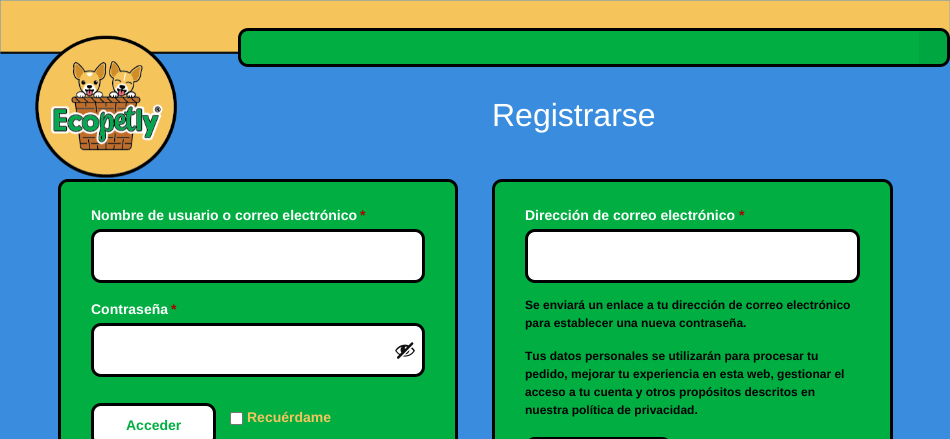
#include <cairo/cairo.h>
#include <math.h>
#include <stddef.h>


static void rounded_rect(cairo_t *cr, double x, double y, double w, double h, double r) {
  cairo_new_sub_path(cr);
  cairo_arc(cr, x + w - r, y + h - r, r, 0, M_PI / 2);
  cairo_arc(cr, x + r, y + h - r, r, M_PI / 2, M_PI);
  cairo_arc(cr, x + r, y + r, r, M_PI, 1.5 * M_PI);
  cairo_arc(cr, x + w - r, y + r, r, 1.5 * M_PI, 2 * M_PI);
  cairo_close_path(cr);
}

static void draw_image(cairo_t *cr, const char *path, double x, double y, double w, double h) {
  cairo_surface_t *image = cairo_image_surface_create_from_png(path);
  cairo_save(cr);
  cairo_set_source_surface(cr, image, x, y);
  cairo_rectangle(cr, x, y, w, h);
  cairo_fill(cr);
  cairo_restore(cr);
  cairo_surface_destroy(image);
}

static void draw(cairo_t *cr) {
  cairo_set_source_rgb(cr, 58 / 255.0, 141 / 255.0, 222 / 255.0);
  cairo_paint(cr);
  draw_image(cr, "images/1.png", 0, 0, 950, 54);
  draw_image(cr, "images/2.png", 35, 35, 142, 143);
  cairo_set_source_rgb(cr, 0, 174 / 255.0, 66 / 255.0);
  rounded_rect(cr, 239.5, 29.5, 709, 36, 8.5);
  cairo_fill_preserve(cr);
  cairo_set_source_rgb(cr, 0, 0, 0);
  cairo_set_line_width(cr, 3);
  cairo_stroke(cr);
  cairo_set_source_rgba(cr, 0, 0, 0, 0.05);
  cairo_rectangle(cr, 919, 31, 28, 33);
  cairo_fill(cr);
  cairo_set_source_rgb(cr, 0, 174 / 255.0, 66 / 255.0);
  rounded_rect(cr, 59.5, 180.5, 397, 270, 8.5);
  cairo_fill_preserve(cr);
  cairo_set_source_rgb(cr, 0, 0, 0);
  cairo_stroke(cr);
  cairo_set_source_rgb(cr, 1, 1, 1);
  rounded_rect(cr, 92.5, 230.5, 331, 51, 8.5);
  cairo_fill_preserve(cr);
  cairo_set_source_rgb(cr, 0, 0, 0);
  cairo_stroke(cr);
  cairo_set_source_rgb(cr, 1, 1, 1);
  rounded_rect(cr, 92.5, 324.5, 331, 51, 8.5);
  cairo_fill_preserve(cr);
  cairo_set_source_rgb(cr, 0, 0, 0);
  cairo_stroke(cr);
  draw_image(cr, "images/3.png", 395, 342, 20, 17);
  cairo_set_source_rgb(cr, 1, 1, 1);
  rounded_rect(cr, 230.5, 412.5, 12, 12, 1.5);
  cairo_fill_preserve(cr);
  cairo_set_source_rgb(cr, 118 / 255.0, 118 / 255.0, 118 / 255.0);
  cairo_set_line_width(cr, 1);
  cairo_stroke(cr);
  cairo_set_source_rgb(cr, 1, 1, 1);
  rounded_rect(cr, 92.5, 404.5, 122, 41, 8.5);
  cairo_fill_preserve(cr);
  cairo_set_source_rgb(cr, 0, 0, 0);
  cairo_set_line_width(cr, 3);
  cairo_stroke(cr);
  cairo_set_source_rgb(cr, 0, 174 / 255.0, 66 / 255.0);
  rounded_rect(cr, 493.5, 180.5, 398, 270, 8.5);
  cairo_fill_preserve(cr);
  cairo_set_source_rgb(cr, 0, 0, 0);
  cairo_stroke(cr);
  cairo_set_source_rgb(cr, 1, 1, 1);
  rounded_rect(cr, 526.5, 230.5, 332, 51, 8.5);
  cairo_fill_preserve(cr);
  cairo_set_source_rgb(cr, 0, 0, 0);
  cairo_stroke(cr);
  rounded_rect(cr, 526.5, 438.5, 144, 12, 8.5);
  cairo_stroke(cr);
  cairo_select_font_face(cr, "Liberation Sans", CAIRO_FONT_SLANT_NORMAL, CAIRO_FONT_WEIGHT_BOLD);
  cairo_set_font_size(cr, 14);
  cairo_set_source_rgb(cr, 1, 1, 1);
  cairo_move_to(cr, 91, 220);
  cairo_show_text(cr, "Nombre de usuario o correo electrónico");
  cairo_set_source_rgb(cr, 170 / 255.0, 0, 0);
  cairo_move_to(cr, 360, 220);
  cairo_show_text(cr, "*");
  cairo_set_source_rgb(cr, 1, 1, 1);
  cairo_move_to(cr, 91, 314);
  cairo_show_text(cr, "Contraseña");
  cairo_set_source_rgb(cr, 170 / 255.0, 0, 0);
  cairo_move_to(cr, 171, 314);
  cairo_show_text(cr, "*");
  cairo_set_source_rgb(cr, 244 / 255.0, 197 / 255.0, 92 / 255.0);
  cairo_move_to(cr, 247, 422);
  cairo_show_text(cr, "Recuérdame");
  cairo_set_source_rgb(cr, 0, 174 / 255.0, 66 / 255.0);
  cairo_move_to(cr, 126, 430);
  cairo_show_text(cr, "Acceder");
  cairo_select_font_face(cr, "Liberation Sans", CAIRO_FONT_SLANT_NORMAL, CAIRO_FONT_WEIGHT_NORMAL);
  cairo_set_font_size(cr, 32);
  cairo_set_source_rgb(cr, 1, 1, 1);
  cairo_move_to(cr, 492, 126);
  cairo_show_text(cr, "Registrarse");
  cairo_select_font_face(cr, "Liberation Sans", CAIRO_FONT_SLANT_NORMAL, CAIRO_FONT_WEIGHT_BOLD);
  cairo_set_font_size(cr, 14);
  cairo_move_to(cr, 525, 220);
  cairo_show_text(cr, "Dirección de correo electrónico");
  cairo_set_source_rgb(cr, 170 / 255.0, 0, 0);
  cairo_move_to(cr, 739, 220);
  cairo_show_text(cr, "*");
  cairo_set_font_size(cr, 12);
  cairo_set_source_rgb(cr, 0, 0, 0);
  cairo_move_to(cr, 525, 309);
  cairo_show_text(cr, "Se enviará un enlace a tu dirección de correo electrónico");
  cairo_move_to(cr, 525, 327);
  cairo_show_text(cr, "para establecer una nueva contraseña.");
  cairo_move_to(cr, 525, 360);
  cairo_show_text(cr, "Tus datos personales se utilizarán para procesar tu");
  cairo_move_to(cr, 525, 378);
  cairo_show_text(cr, "pedido, mejorar tu experiencia en esta web, gestionar el");
  cairo_move_to(cr, 525, 396);
  cairo_show_text(cr, "acceso a tu cuenta y otros propósitos descritos en");
  cairo_move_to(cr, 525, 414);
  cairo_show_text(cr, "nuestra política de privacidad.");
}

int main(void) {
  cairo_surface_t *surface = cairo_image_surface_create(CAIRO_FORMAT_RGB24, 950, 439);
  cairo_t *cr = cairo_create(surface);
  cairo_font_options_t *options = cairo_font_options_create();
  cairo_font_options_set_hint_metrics(options, CAIRO_HINT_METRICS_OFF);
  cairo_font_options_set_hint_style(options, CAIRO_HINT_STYLE_NONE);
  cairo_set_font_options(cr, options);
  cairo_set_miter_limit(cr, 4);
  draw(cr);
  cairo_surface_write_to_png(surface, "out.png");
  cairo_font_options_destroy(options);
  cairo_destroy(cr);
  cairo_surface_destroy(surface);
  return 0;
}
